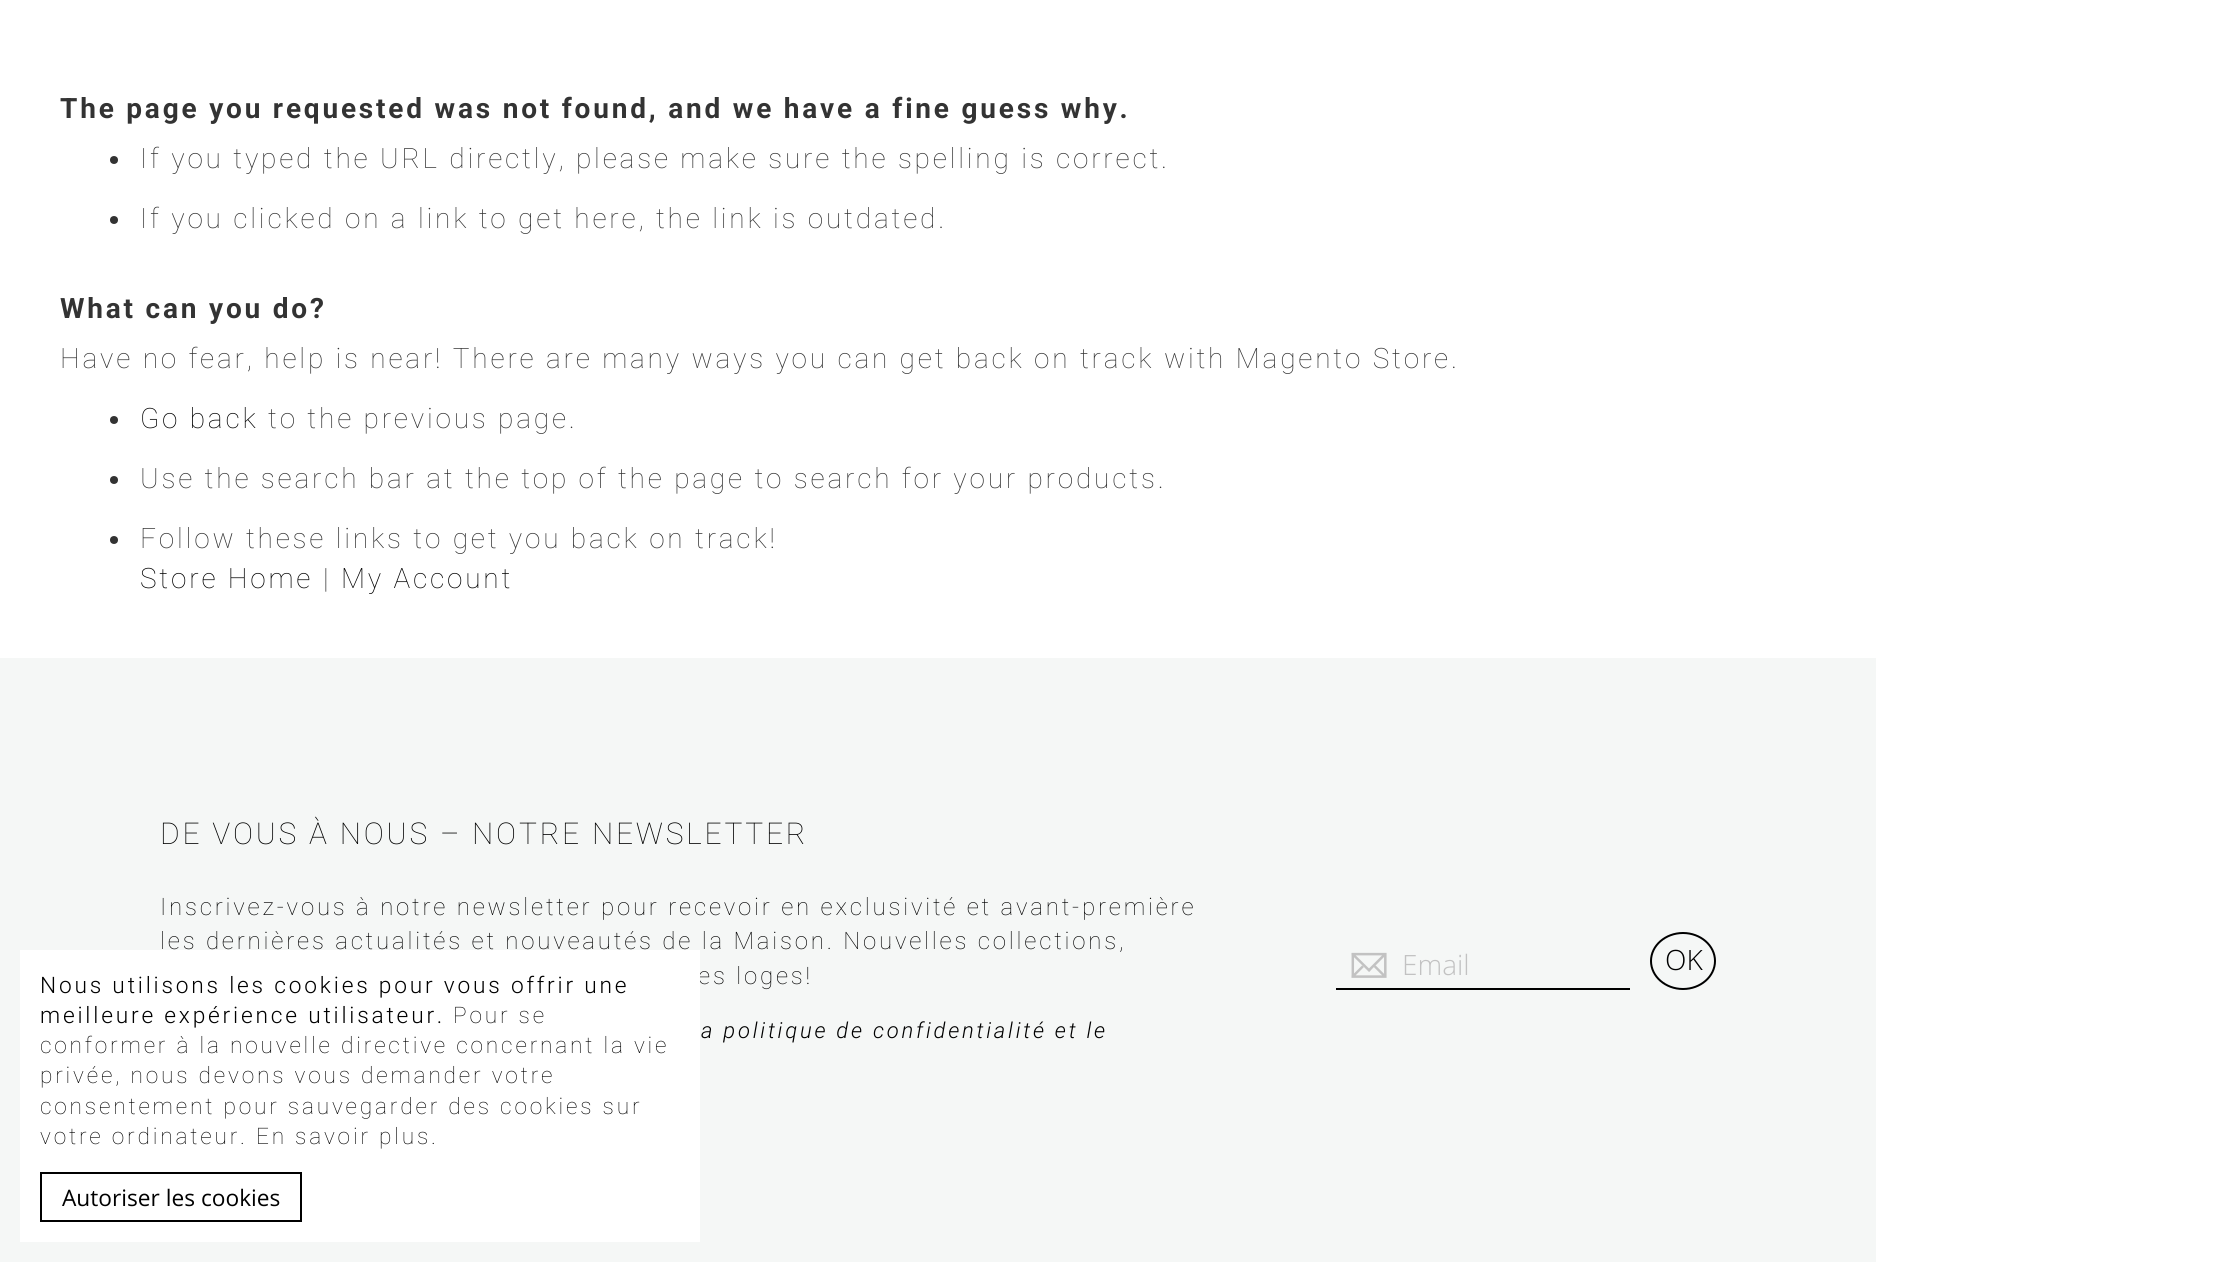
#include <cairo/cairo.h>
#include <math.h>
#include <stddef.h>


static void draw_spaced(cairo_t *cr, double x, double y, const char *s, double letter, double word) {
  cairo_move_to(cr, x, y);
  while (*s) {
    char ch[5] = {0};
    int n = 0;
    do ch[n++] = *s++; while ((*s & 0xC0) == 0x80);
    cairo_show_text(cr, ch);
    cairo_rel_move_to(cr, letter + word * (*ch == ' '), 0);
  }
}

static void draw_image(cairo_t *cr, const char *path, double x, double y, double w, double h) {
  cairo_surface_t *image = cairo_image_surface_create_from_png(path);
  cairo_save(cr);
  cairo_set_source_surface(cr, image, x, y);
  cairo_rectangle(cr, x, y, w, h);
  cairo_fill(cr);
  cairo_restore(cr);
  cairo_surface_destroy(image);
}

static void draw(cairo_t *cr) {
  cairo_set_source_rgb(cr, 1, 1, 1);
  cairo_paint(cr);
  cairo_set_source_rgb(cr, 51 / 255.0, 51 / 255.0, 51 / 255.0);
  cairo_arc(cr, 114, 160, 4, 0, 2 * M_PI);
  cairo_fill(cr);
  cairo_arc(cr, 114, 220, 4, 0, 2 * M_PI);
  cairo_fill(cr);
  cairo_arc(cr, 114, 420, 4, 0, 2 * M_PI);
  cairo_fill(cr);
  cairo_arc(cr, 114, 480, 4, 0, 2 * M_PI);
  cairo_fill(cr);
  cairo_arc(cr, 114, 540, 4, 0, 2 * M_PI);
  cairo_fill(cr);
  cairo_set_source_rgb(cr, 245 / 255.0, 247 / 255.0, 246 / 255.0);
  cairo_rectangle(cr, 0, 658, 1876, 604);
  cairo_fill(cr);
  draw_image(cr, "images/1.png", 1351, 952, 36, 26);
  cairo_set_source_rgb(cr, 0, 0, 0);
  cairo_rectangle(cr, 1336, 988, 294, 2);
  cairo_fill(cr);
  cairo_new_path(cr);
  cairo_move_to(cr, 1683, 933);
  cairo_curve_to(cr, 1700.5, 933, 1715, 945.5, 1715, 961);
  cairo_curve_to(cr, 1715, 976.5, 1700.5, 989, 1683, 989);
  cairo_curve_to(cr, 1665.5, 989, 1651, 976.5, 1651, 961);
  cairo_curve_to(cr, 1651, 945.5, 1665.5, 933, 1683, 933);
  cairo_close_path(cr);
  cairo_stroke(cr);
  cairo_select_font_face(cr, "Roboto", CAIRO_FONT_SLANT_NORMAL, CAIRO_FONT_WEIGHT_BOLD);
  cairo_set_font_size(cr, 28);
  cairo_set_source_rgb(cr, 51 / 255.0, 51 / 255.0, 51 / 255.0);
  draw_spaced(cr, 60, 118, "The page you requested was not found, and we have a fine guess why.", 2.8, 0);
  cairo_select_font_face(cr, "Roboto Thin", CAIRO_FONT_SLANT_NORMAL, CAIRO_FONT_WEIGHT_NORMAL);
  draw_spaced(cr, 140, 168, "If you typed the URL directly, please make sure the spelling is correct.", 2.8, 0);
  draw_spaced(cr, 140, 228, "If you clicked on a link to get here, the link is outdated.", 2.8, 0);
  cairo_select_font_face(cr, "Roboto", CAIRO_FONT_SLANT_NORMAL, CAIRO_FONT_WEIGHT_BOLD);
  draw_spaced(cr, 60, 318, "What can you do?", 2.8, 0);
  cairo_select_font_face(cr, "Roboto Thin", CAIRO_FONT_SLANT_NORMAL, CAIRO_FONT_WEIGHT_NORMAL);
  draw_spaced(cr, 60, 368, "Have no fear, help is near! There are many ways you can get back on track with Magento Store.", 2.8, 0);
  cairo_set_source_rgb(cr, 0, 0, 0);
  draw_spaced(cr, 140, 428, "Go back", 2.8, 0);
  cairo_set_source_rgb(cr, 51 / 255.0, 51 / 255.0, 51 / 255.0);
  draw_spaced(cr, 268, 428, "to the previous page.", 2.8, 0);
  draw_spaced(cr, 140, 488, "Use the search bar at the top of the page to search for your products.", 2.8, 0);
  draw_spaced(cr, 140, 548, "Follow these links to get you back on track!", 2.8, 0);
  cairo_set_source_rgb(cr, 0, 0, 0);
  draw_spaced(cr, 140, 588, "Store Home", 2.8, 0);
  cairo_set_source_rgb(cr, 51 / 255.0, 51 / 255.0, 51 / 255.0);
  draw_spaced(cr, 323, 588, "|", 2.8, 0);
  cairo_set_source_rgb(cr, 0, 0, 0);
  draw_spaced(cr, 341, 588, "My Account", 2.8, 0);
  cairo_set_font_size(cr, 30);
  draw_spaced(cr, 160, 844, "DE VOUS À NOUS – NOTRE NEWSLETTER", 2.8, 0);
  cairo_set_font_size(cr, 24);
  draw_spaced(cr, 160, 915, "Inscrivez-vous à notre newsletter pour recevoir en exclusivité et avant-première", 2.8, 0);
  draw_spaced(cr, 160, 949, "les dernières actualités et nouveautés de la Maison. Nouvelles collections,", 2.8, 0);
  draw_spaced(cr, 698, 984, "es loges!", 2.8, 0);
  cairo_select_font_face(cr, "Roboto Light", CAIRO_FONT_SLANT_ITALIC, CAIRO_FONT_WEIGHT_NORMAL);
  cairo_set_font_size(cr, 22);
  draw_spaced(cr, 701, 1038, "a politique de confidentialité et le", 2.8, 0);
  cairo_select_font_face(cr, "Open Sans Light", CAIRO_FONT_SLANT_NORMAL, CAIRO_FONT_WEIGHT_NORMAL);
  cairo_set_font_size(cr, 28);
  cairo_set_source_rgb(cr, 194 / 255.0, 194 / 255.0, 194 / 255.0);
  cairo_move_to(cr, 1402, 975);
  cairo_show_text(cr, "Email");
  cairo_set_source_rgb(cr, 0, 0, 0);
  cairo_move_to(cr, 1665, 970);
  cairo_show_text(cr, "OK");
  cairo_set_source_rgb(cr, 1, 1, 1);
  cairo_rectangle(cr, 20, 950, 680, 292);
  cairo_fill(cr);
  cairo_select_font_face(cr, "Roboto Light", CAIRO_FONT_SLANT_NORMAL, CAIRO_FONT_WEIGHT_NORMAL);
  cairo_set_font_size(cr, 22.7);
  cairo_set_source_rgb(cr, 0, 0, 0);
  draw_spaced(cr, 40, 993, "Nous utilisons les cookies pour vous offrir une", 2.8, 0);
  draw_spaced(cr, 40, 1023, "meilleure expérience utilisateur.", 2.8, 0);
  cairo_select_font_face(cr, "Roboto Thin", CAIRO_FONT_SLANT_NORMAL, CAIRO_FONT_WEIGHT_NORMAL);
  draw_spaced(cr, 453, 1023, "Pour se", 2.8, 0);
  draw_spaced(cr, 40, 1053, "conformer à la nouvelle directive concernant la vie", 2.8, 0);
  draw_spaced(cr, 40, 1083, "privée, nous devons vous demander votre", 2.8, 0);
  draw_spaced(cr, 40, 1114, "consentement pour sauvegarder des cookies sur", 2.8, 0);
  draw_spaced(cr, 40, 1144, "votre ordinateur. En savoir plus.", 2.8, 0);
  cairo_rectangle(cr, 41, 1173, 260, 48);
  cairo_stroke(cr);
  cairo_select_font_face(cr, "Open Sans", CAIRO_FONT_SLANT_NORMAL, CAIRO_FONT_WEIGHT_NORMAL);
  cairo_move_to(cr, 62, 1206);
  cairo_show_text(cr, "Autoriser les cookies");
}

int main(void) {
  cairo_surface_t *surface = cairo_image_surface_create(CAIRO_FORMAT_RGB24, 2227, 1262);
  cairo_t *cr = cairo_create(surface);
  cairo_font_options_t *options = cairo_font_options_create();
  cairo_font_options_set_hint_metrics(options, CAIRO_HINT_METRICS_OFF);
  cairo_font_options_set_hint_style(options, CAIRO_HINT_STYLE_NONE);
  cairo_set_font_options(cr, options);
  cairo_set_miter_limit(cr, 4);
  draw(cr);
  cairo_surface_write_to_png(surface, "out.png");
  cairo_font_options_destroy(options);
  cairo_destroy(cr);
  cairo_surface_destroy(surface);
  return 0;
}
